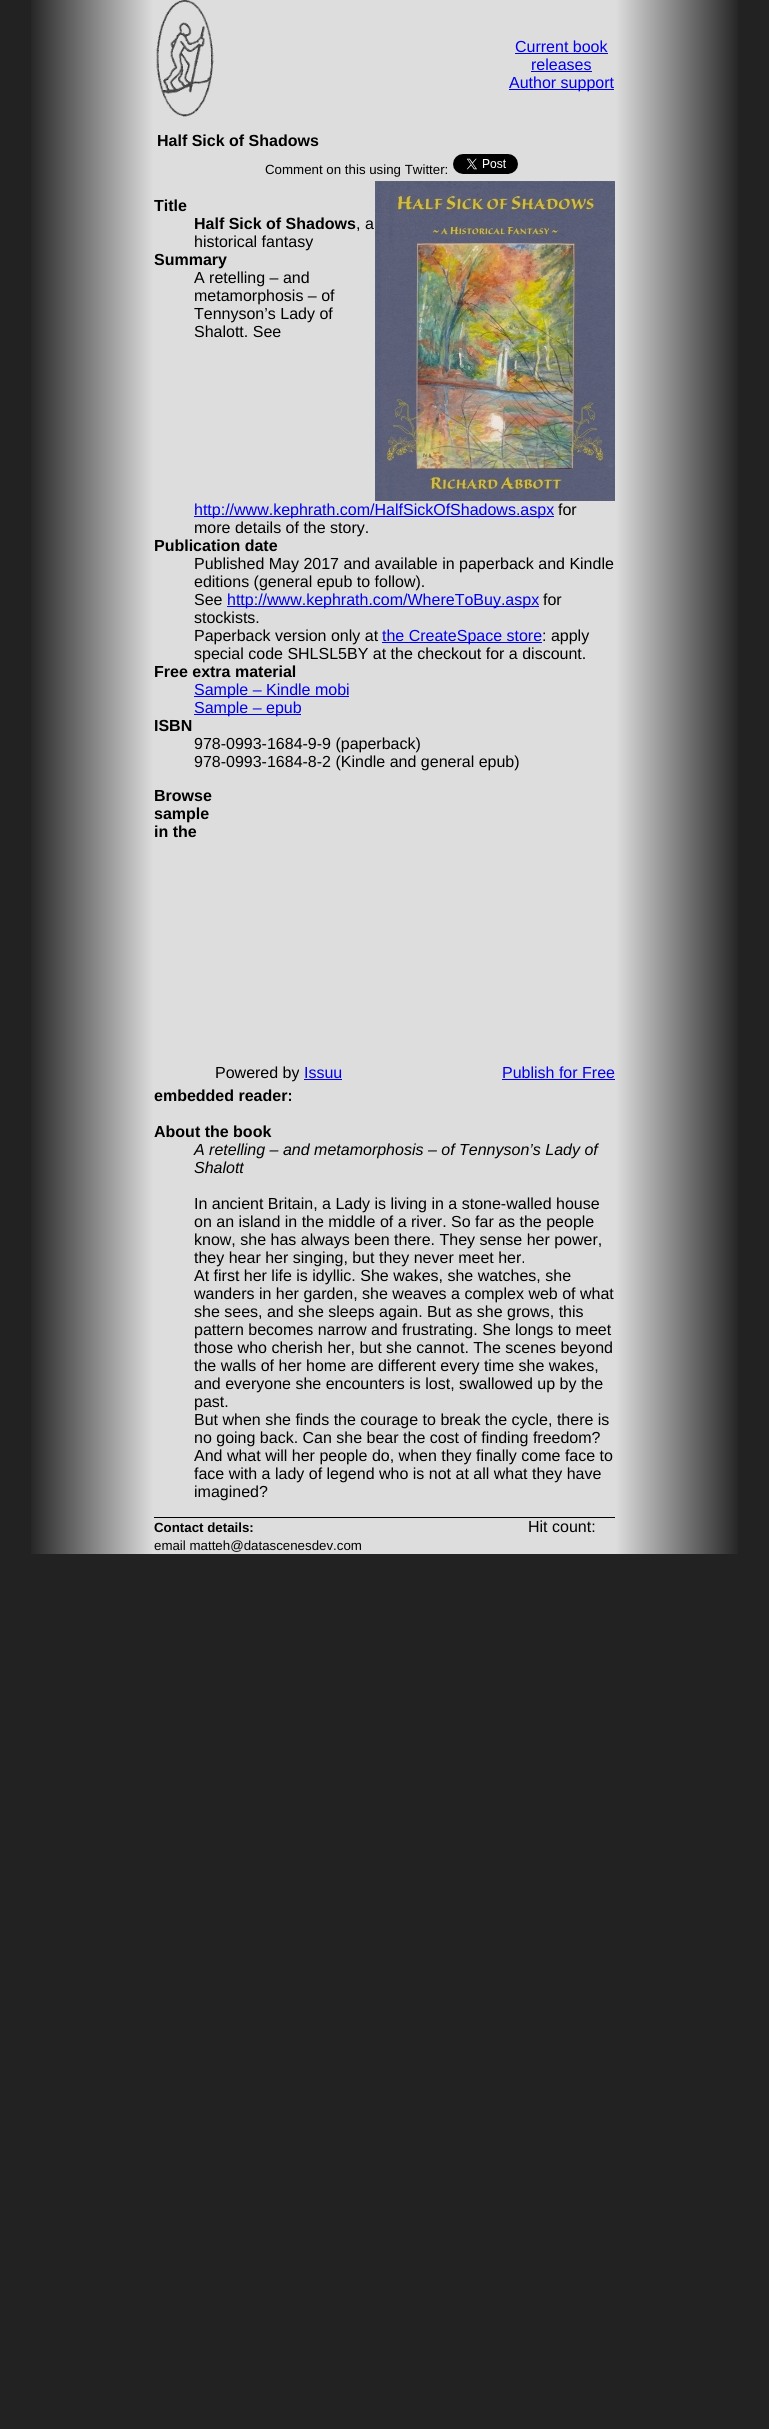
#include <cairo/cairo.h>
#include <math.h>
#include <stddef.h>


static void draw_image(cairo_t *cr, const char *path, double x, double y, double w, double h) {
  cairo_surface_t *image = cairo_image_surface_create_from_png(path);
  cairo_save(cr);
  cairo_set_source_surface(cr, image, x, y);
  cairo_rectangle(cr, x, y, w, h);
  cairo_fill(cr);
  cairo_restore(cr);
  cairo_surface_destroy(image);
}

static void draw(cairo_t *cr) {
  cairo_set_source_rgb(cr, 34 / 255.0, 34 / 255.0, 34 / 255.0);
  cairo_paint(cr);
  draw_image(cr, "images/1.png", 31, 0, 123, 129);
  cairo_set_source_rgb(cr, 221 / 255.0, 221 / 255.0, 221 / 255.0);
  cairo_rectangle(cr, 154, 0, 461, 1517);
  cairo_fill(cr);
  draw_image(cr, "images/2.png", 156, 0, 58, 117);
  draw_image(cr, "images/3.png", 615, 0, 123, 129);
  cairo_set_source_rgb(cr, 0, 0, 238 / 255.0);
  cairo_rectangle(cr, 515, 53, 93, 1);
  cairo_fill(cr);
  cairo_rectangle(cr, 531, 71, 61, 1);
  cairo_fill(cr);
  cairo_rectangle(cr, 509, 89, 105, 1);
  cairo_fill(cr);
  draw_image(cr, "images/4.png", 31, 129, 123, 1388);
  draw_image(cr, "images/5.png", 453, 154, 65, 20);
  draw_image(cr, "images/6.png", 375, 181, 240, 320);
  cairo_rectangle(cr, 194, 516, 360, 1);
  cairo_fill(cr);
  cairo_rectangle(cr, 227, 606, 312, 1);
  cairo_fill(cr);
  cairo_rectangle(cr, 382, 642, 160, 1);
  cairo_fill(cr);
  cairo_rectangle(cr, 194, 696, 155, 1);
  cairo_fill(cr);
  cairo_rectangle(cr, 194, 714, 107, 1);
  cairo_fill(cr);
  cairo_rectangle(cr, 304, 1079, 38, 1);
  cairo_fill(cr);
  cairo_rectangle(cr, 502, 1079, 113, 1);
  cairo_fill(cr);
  draw_image(cr, "images/7.png", 615, 129, 123, 1388);
  draw_image(cr, "images/8.png", 31, 1517, 123, 37);
  cairo_set_source_rgb(cr, 221 / 255.0, 221 / 255.0, 221 / 255.0);
  cairo_rectangle(cr, 154, 1518, 461, 36);
  cairo_fill(cr);
  cairo_set_source_rgb(cr, 0, 0, 0);
  cairo_rectangle(cr, 154, 1517, 461, 1);
  cairo_fill(cr);
  draw_image(cr, "images/9.png", 615, 1517, 123, 37);
  cairo_select_font_face(cr, "Liberation Sans", CAIRO_FONT_SLANT_NORMAL, CAIRO_FONT_WEIGHT_NORMAL);
  cairo_set_font_size(cr, 16);
  cairo_set_source_rgb(cr, 0, 0, 238 / 255.0);
  cairo_move_to(cr, 515, 52);
  cairo_show_text(cr, "Current book");
  cairo_move_to(cr, 531, 70);
  cairo_show_text(cr, "releases");
  cairo_move_to(cr, 509, 88);
  cairo_show_text(cr, "Author support");
  cairo_select_font_face(cr, "Liberation Sans", CAIRO_FONT_SLANT_NORMAL, CAIRO_FONT_WEIGHT_BOLD);
  cairo_set_source_rgb(cr, 0, 0, 0);
  cairo_move_to(cr, 157, 146);
  cairo_show_text(cr, "Half Sick of Shadows");
  cairo_select_font_face(cr, "Liberation Sans", CAIRO_FONT_SLANT_NORMAL, CAIRO_FONT_WEIGHT_NORMAL);
  cairo_set_font_size(cr, 13.3);
  cairo_move_to(cr, 265, 174);
  cairo_show_text(cr, "Comment on this using Twitter:");
  cairo_select_font_face(cr, "Liberation Sans", CAIRO_FONT_SLANT_NORMAL, CAIRO_FONT_WEIGHT_BOLD);
  cairo_set_font_size(cr, 16);
  cairo_move_to(cr, 154, 211);
  cairo_show_text(cr, "Title");
  cairo_move_to(cr, 194, 229);
  cairo_show_text(cr, "Half Sick of Shadows");
  cairo_select_font_face(cr, "Liberation Sans", CAIRO_FONT_SLANT_NORMAL, CAIRO_FONT_WEIGHT_NORMAL);
  cairo_move_to(cr, 356, 229);
  cairo_show_text(cr, ", a");
  cairo_move_to(cr, 194, 247);
  cairo_show_text(cr, "historical fantasy");
  cairo_select_font_face(cr, "Liberation Sans", CAIRO_FONT_SLANT_NORMAL, CAIRO_FONT_WEIGHT_BOLD);
  cairo_move_to(cr, 154, 265);
  cairo_show_text(cr, "Summary");
  cairo_select_font_face(cr, "Liberation Sans", CAIRO_FONT_SLANT_NORMAL, CAIRO_FONT_WEIGHT_NORMAL);
  cairo_move_to(cr, 194, 283);
  cairo_show_text(cr, "A retelling – and");
  cairo_move_to(cr, 194, 301);
  cairo_show_text(cr, "metamorphosis – of");
  cairo_move_to(cr, 194, 319);
  cairo_show_text(cr, "Tennyson’s Lady of");
  cairo_move_to(cr, 194, 337);
  cairo_show_text(cr, "Shalott. See");
  cairo_set_source_rgb(cr, 0, 0, 238 / 255.0);
  cairo_move_to(cr, 194, 515);
  cairo_show_text(cr, "http://www.kephrath.com/HalfSickOfShadows.aspx");
  cairo_set_source_rgb(cr, 0, 0, 0);
  cairo_move_to(cr, 558, 515);
  cairo_show_text(cr, "for");
  cairo_move_to(cr, 194, 533);
  cairo_show_text(cr, "more details of the story.");
  cairo_select_font_face(cr, "Liberation Sans", CAIRO_FONT_SLANT_NORMAL, CAIRO_FONT_WEIGHT_BOLD);
  cairo_move_to(cr, 154, 551);
  cairo_show_text(cr, "Publication date");
  cairo_select_font_face(cr, "Liberation Sans", CAIRO_FONT_SLANT_NORMAL, CAIRO_FONT_WEIGHT_NORMAL);
  cairo_move_to(cr, 194, 569);
  cairo_show_text(cr, "Published May 2017 and available in paperback and Kindle");
  cairo_move_to(cr, 194, 587);
  cairo_show_text(cr, "editions (general epub to follow).");
  cairo_move_to(cr, 194, 605);
  cairo_show_text(cr, "See");
  cairo_set_source_rgb(cr, 0, 0, 238 / 255.0);
  cairo_move_to(cr, 227, 605);
  cairo_show_text(cr, "http://www.kephrath.com/WhereToBuy.aspx");
  cairo_set_source_rgb(cr, 0, 0, 0);
  cairo_move_to(cr, 543, 605);
  cairo_show_text(cr, "for");
  cairo_move_to(cr, 194, 623);
  cairo_show_text(cr, "stockists.");
  cairo_move_to(cr, 194, 641);
  cairo_show_text(cr, "Paperback version only at");
  cairo_set_source_rgb(cr, 0, 0, 238 / 255.0);
  cairo_move_to(cr, 382, 641);
  cairo_show_text(cr, "the CreateSpace store");
  cairo_set_source_rgb(cr, 0, 0, 0);
  cairo_move_to(cr, 542, 641);
  cairo_show_text(cr, ": apply");
  cairo_move_to(cr, 194, 659);
  cairo_show_text(cr, "special code SHLSL5BY at the checkout for a discount.");
  cairo_select_font_face(cr, "Liberation Sans", CAIRO_FONT_SLANT_NORMAL, CAIRO_FONT_WEIGHT_BOLD);
  cairo_move_to(cr, 154, 677);
  cairo_show_text(cr, "Free extra material");
  cairo_select_font_face(cr, "Liberation Sans", CAIRO_FONT_SLANT_NORMAL, CAIRO_FONT_WEIGHT_NORMAL);
  cairo_set_source_rgb(cr, 0, 0, 238 / 255.0);
  cairo_move_to(cr, 194, 695);
  cairo_show_text(cr, "Sample – Kindle mobi");
  cairo_move_to(cr, 194, 713);
  cairo_show_text(cr, "Sample – epub");
  cairo_select_font_face(cr, "Liberation Sans", CAIRO_FONT_SLANT_NORMAL, CAIRO_FONT_WEIGHT_BOLD);
  cairo_set_source_rgb(cr, 0, 0, 0);
  cairo_move_to(cr, 154, 731);
  cairo_show_text(cr, "ISBN");
  cairo_select_font_face(cr, "Liberation Sans", CAIRO_FONT_SLANT_NORMAL, CAIRO_FONT_WEIGHT_NORMAL);
  cairo_move_to(cr, 194, 749);
  cairo_show_text(cr, "978-0993-1684-9-9 (paperback)");
  cairo_move_to(cr, 194, 767);
  cairo_show_text(cr, "978-0993-1684-8-2 (Kindle and general epub)");
  cairo_select_font_face(cr, "Liberation Sans", CAIRO_FONT_SLANT_NORMAL, CAIRO_FONT_WEIGHT_BOLD);
  cairo_move_to(cr, 154, 801);
  cairo_show_text(cr, "Browse");
  cairo_move_to(cr, 154, 819);
  cairo_show_text(cr, "sample");
  cairo_move_to(cr, 154, 837);
  cairo_show_text(cr, "in the");
  cairo_move_to(cr, 154, 1101);
  cairo_show_text(cr, "embedded reader:");
  cairo_move_to(cr, 154, 1137);
  cairo_show_text(cr, "About the book");
  cairo_select_font_face(cr, "Liberation Sans", CAIRO_FONT_SLANT_ITALIC, CAIRO_FONT_WEIGHT_NORMAL);
  cairo_move_to(cr, 194, 1155);
  cairo_show_text(cr, "A retelling – and metamorphosis – of Tennyson’s Lady of");
  cairo_move_to(cr, 194, 1173);
  cairo_show_text(cr, "Shalott");
  cairo_select_font_face(cr, "Liberation Sans", CAIRO_FONT_SLANT_NORMAL, CAIRO_FONT_WEIGHT_NORMAL);
  cairo_move_to(cr, 194, 1209);
  cairo_show_text(cr, "In ancient Britain, a Lady is living in a stone-walled house");
  cairo_move_to(cr, 194, 1227);
  cairo_show_text(cr, "on an island in the middle of a river. So far as the people");
  cairo_move_to(cr, 194, 1245);
  cairo_show_text(cr, "know, she has always been there. They sense her power,");
  cairo_move_to(cr, 194, 1263);
  cairo_show_text(cr, "they hear her singing, but they never meet her.");
  cairo_move_to(cr, 194, 1281);
  cairo_show_text(cr, "At first her life is idyllic. She wakes, she watches, she");
  cairo_move_to(cr, 194, 1299);
  cairo_show_text(cr, "wanders in her garden, she weaves a complex web of what");
  cairo_move_to(cr, 194, 1317);
  cairo_show_text(cr, "she sees, and she sleeps again. But as she grows, this");
  cairo_move_to(cr, 194, 1335);
  cairo_show_text(cr, "pattern becomes narrow and frustrating. She longs to meet");
  cairo_move_to(cr, 194, 1353);
  cairo_show_text(cr, "those who cherish her, but she cannot. The scenes beyond");
  cairo_move_to(cr, 194, 1371);
  cairo_show_text(cr, "the walls of her home are different every time she wakes,");
  cairo_move_to(cr, 194, 1389);
  cairo_show_text(cr, "and everyone she encounters is lost, swallowed up by the");
  cairo_move_to(cr, 194, 1407);
  cairo_show_text(cr, "past.");
  cairo_move_to(cr, 194, 1425);
  cairo_show_text(cr, "But when she finds the courage to break the cycle, there is");
  cairo_move_to(cr, 194, 1443);
  cairo_show_text(cr, "no going back. Can she bear the cost of finding freedom?");
  cairo_move_to(cr, 194, 1461);
  cairo_show_text(cr, "And what will her people do, when they finally come face to");
  cairo_move_to(cr, 194, 1479);
  cairo_show_text(cr, "face with a lady of legend who is not at all what they have");
  cairo_move_to(cr, 194, 1497);
  cairo_show_text(cr, "imagined?");
  cairo_move_to(cr, 215, 1078);
  cairo_show_text(cr, "Powered by");
  cairo_set_source_rgb(cr, 0, 0, 238 / 255.0);
  cairo_move_to(cr, 304, 1078);
  cairo_show_text(cr, "Issuu");
  cairo_move_to(cr, 502, 1078);
  cairo_show_text(cr, "Publish for Free");
  cairo_select_font_face(cr, "Liberation Sans", CAIRO_FONT_SLANT_NORMAL, CAIRO_FONT_WEIGHT_BOLD);
  cairo_set_font_size(cr, 13.3);
  cairo_set_source_rgb(cr, 0, 0, 0);
  cairo_move_to(cr, 154, 1532);
  cairo_show_text(cr, "Contact details:");
  cairo_select_font_face(cr, "Liberation Sans", CAIRO_FONT_SLANT_NORMAL, CAIRO_FONT_WEIGHT_NORMAL);
  cairo_move_to(cr, 154, 1550);
  cairo_show_text(cr, "email matteh@datascenesdev.com");
  cairo_set_font_size(cr, 16);
  cairo_move_to(cr, 528, 1532);
  cairo_show_text(cr, "Hit count:");
}

int main(void) {
  cairo_surface_t *surface = cairo_image_surface_create(CAIRO_FORMAT_RGB24, 769, 2429);
  cairo_t *cr = cairo_create(surface);
  cairo_font_options_t *options = cairo_font_options_create();
  cairo_font_options_set_hint_metrics(options, CAIRO_HINT_METRICS_OFF);
  cairo_font_options_set_hint_style(options, CAIRO_HINT_STYLE_NONE);
  cairo_set_font_options(cr, options);
  cairo_set_miter_limit(cr, 4);
  draw(cr);
  cairo_surface_write_to_png(surface, "out.png");
  cairo_font_options_destroy(options);
  cairo_destroy(cr);
  cairo_surface_destroy(surface);
  return 0;
}
